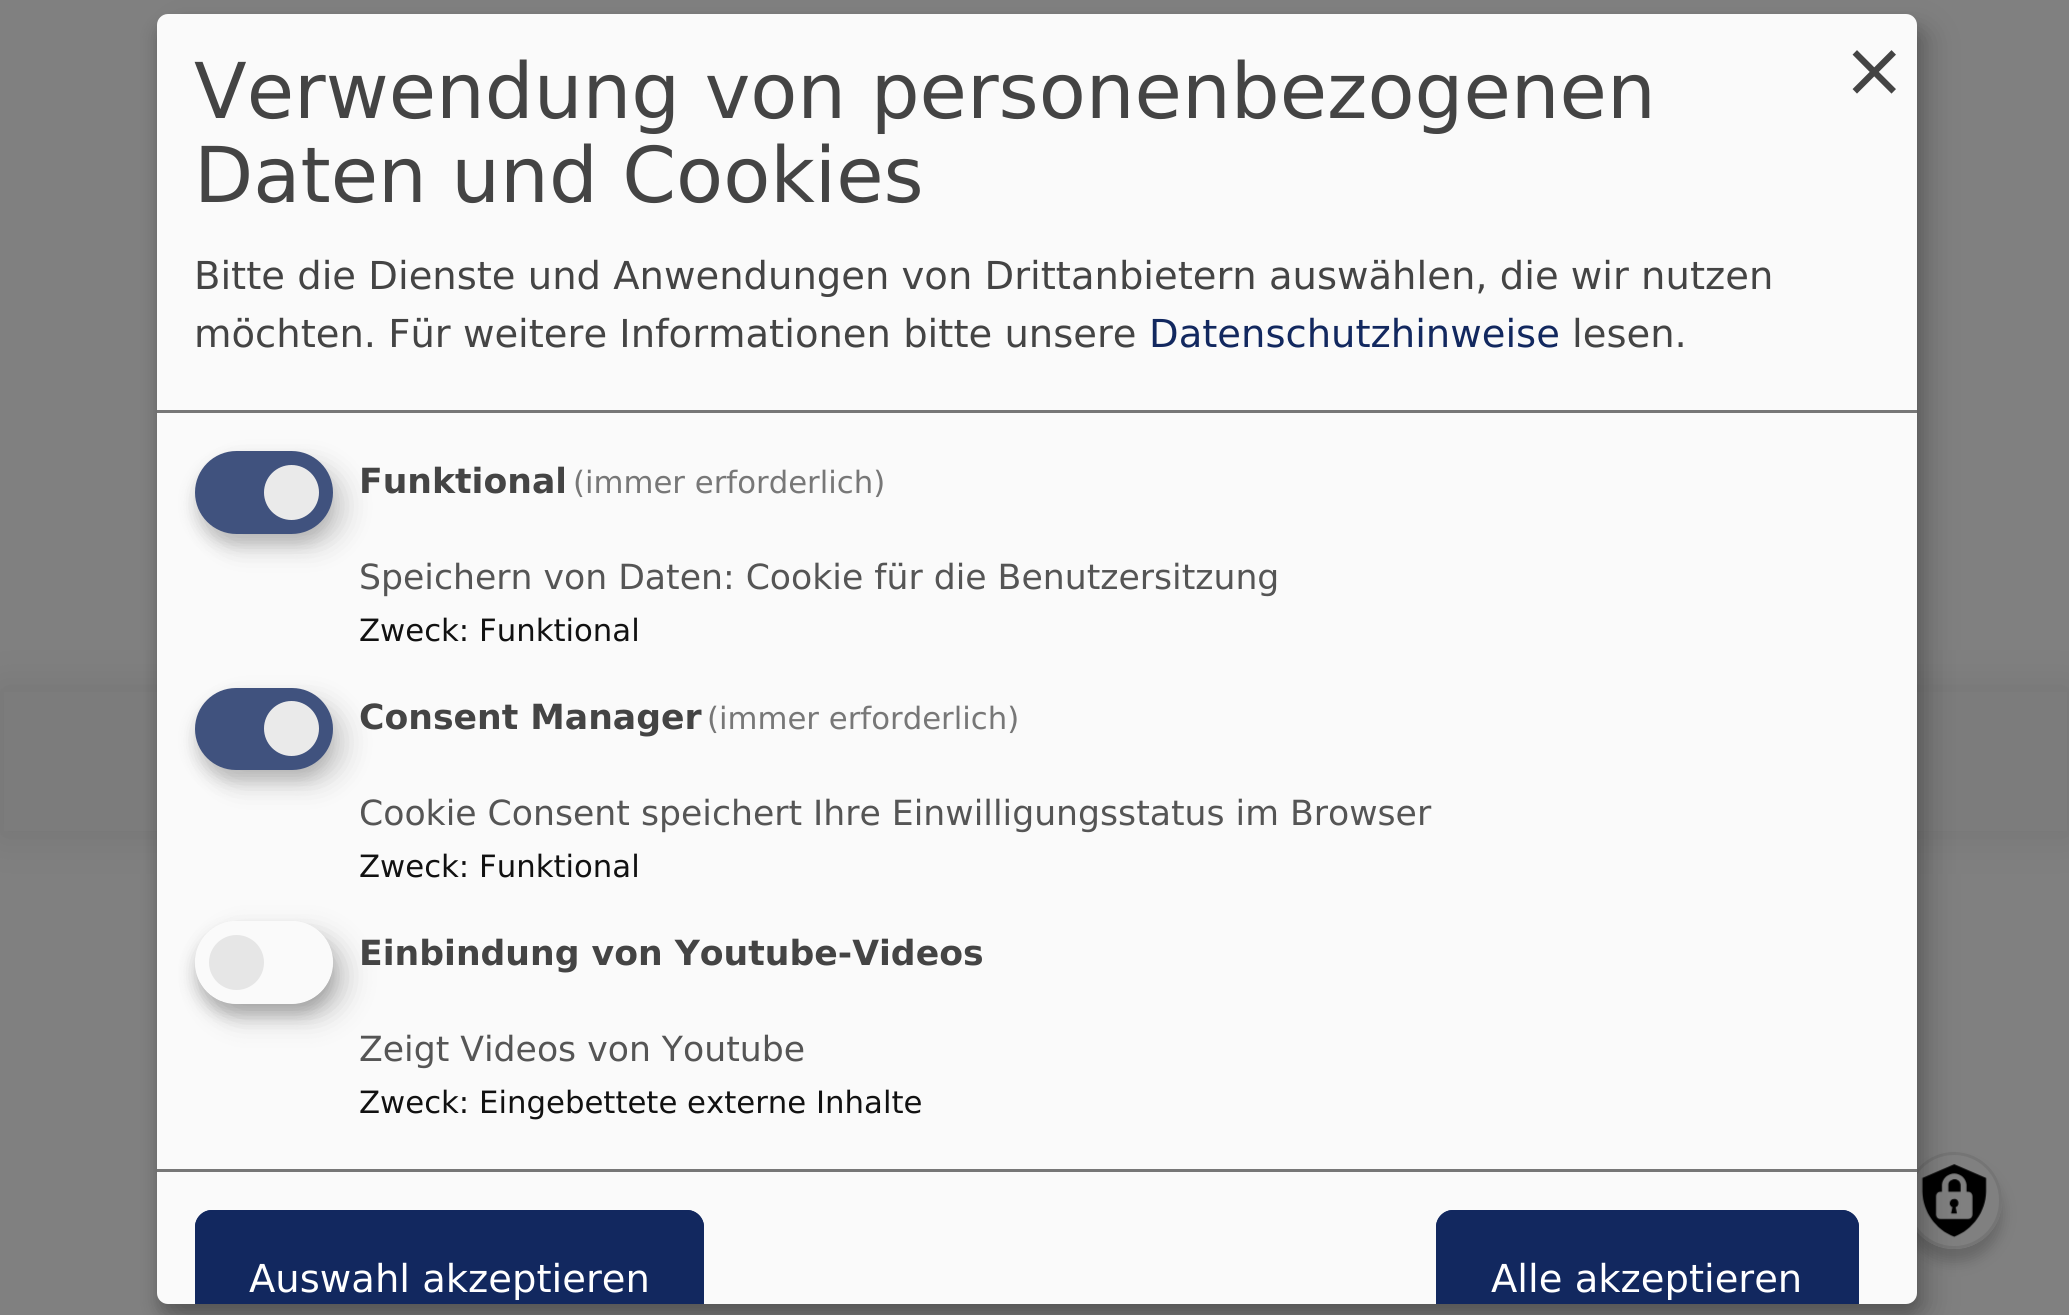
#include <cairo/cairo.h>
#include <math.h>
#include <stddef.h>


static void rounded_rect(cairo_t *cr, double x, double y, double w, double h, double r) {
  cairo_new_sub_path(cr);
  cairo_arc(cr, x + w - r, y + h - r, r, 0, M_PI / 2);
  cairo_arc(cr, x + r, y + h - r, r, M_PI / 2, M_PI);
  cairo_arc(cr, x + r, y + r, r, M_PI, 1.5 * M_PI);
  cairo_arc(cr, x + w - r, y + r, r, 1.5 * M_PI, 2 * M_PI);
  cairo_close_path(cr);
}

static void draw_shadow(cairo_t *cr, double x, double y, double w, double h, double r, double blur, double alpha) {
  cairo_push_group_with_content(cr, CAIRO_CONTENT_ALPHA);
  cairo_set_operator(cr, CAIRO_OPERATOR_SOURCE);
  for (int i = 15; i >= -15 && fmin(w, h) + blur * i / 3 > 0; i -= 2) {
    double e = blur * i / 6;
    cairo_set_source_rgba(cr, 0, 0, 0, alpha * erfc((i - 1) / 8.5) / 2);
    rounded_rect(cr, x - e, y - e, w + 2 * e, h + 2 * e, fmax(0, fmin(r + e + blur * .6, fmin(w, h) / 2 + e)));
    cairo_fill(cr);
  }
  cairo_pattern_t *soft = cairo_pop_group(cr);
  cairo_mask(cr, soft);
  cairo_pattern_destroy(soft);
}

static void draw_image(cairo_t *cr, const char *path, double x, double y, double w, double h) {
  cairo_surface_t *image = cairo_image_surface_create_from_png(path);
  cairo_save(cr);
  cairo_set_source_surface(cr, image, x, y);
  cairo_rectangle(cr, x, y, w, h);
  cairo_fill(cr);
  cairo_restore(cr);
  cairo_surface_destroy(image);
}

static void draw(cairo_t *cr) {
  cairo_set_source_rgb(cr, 128 / 255.0, 128 / 255.0, 128 / 255.0);
  cairo_paint(cr);
  cairo_set_source_rgb(cr, 0, 0, 0);
  draw_shadow(cr, 0, 688, 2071, 148, 0, 20.5, 0.09);
  cairo_set_source_rgb(cr, 124 / 255.0, 124 / 255.0, 124 / 255.0);
  cairo_rectangle(cr, 4, 692, 2063, 139);
  cairo_fill(cr);
  cairo_set_source_rgb(cr, 0, 0, 0);
  draw_shadow(cr, 1906, 1166, 96, 96, 48, 7, 0.2);
  cairo_set_source_rgb(cr, 128 / 255.0, 128 / 255.0, 128 / 255.0);
  rounded_rect(cr, 1906, 1152, 96, 97, 48);
  cairo_fill(cr);
  draw_image(cr, "images/1.png", 1921, 1164, 66, 74);
  rounded_rect(cr, 1907.5, 1153.5, 93, 94, 46.5);
  cairo_set_source_rgb(cr, 117 / 255.0, 117 / 255.0, 117 / 255.0);
  cairo_set_line_width(cr, 3);
  cairo_stroke(cr);
  cairo_set_source_rgb(cr, 0, 0, 0);
  draw_shadow(cr, 171, 28, 1760, 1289, 11, 14, 0.19);
  draw_shadow(cr, 157, 25, 1760, 1290, 11, 8, 0.2);
  cairo_set_source_rgb(cr, 250 / 255.0, 250 / 255.0, 250 / 255.0);
  rounded_rect(cr, 157, 14, 1760, 1290, 11);
  cairo_fill(cr);
  cairo_set_source_rgb(cr, 119 / 255.0, 119 / 255.0, 119 / 255.0);
  cairo_rectangle(cr, 157, 410, 1760, 3);
  cairo_fill(cr);
  cairo_set_source_rgb(cr, 0, 0, 0);
  draw_shadow(cr, 209, 465, 138, 82, 41, 14, 0.15);
  cairo_set_source_rgb(cr, 50 / 255.0, 50 / 255.0, 50 / 255.0);
  draw_shadow(cr, 195, 462, 138, 83, 41.5, 8, 0.2);
  cairo_set_source_rgb(cr, 64 / 255.0, 82 / 255.0, 126 / 255.0);
  rounded_rect(cr, 195, 451, 138, 83, 41.5);
  cairo_fill(cr);
  cairo_set_source_rgb(cr, 234 / 255.0, 234 / 255.0, 234 / 255.0);
  cairo_arc(cr, 291.5, 492.5, 27.5, 0, 2 * M_PI);
  cairo_fill(cr);
  cairo_set_source_rgb(cr, 0, 0, 0);
  draw_shadow(cr, 209, 701, 138, 83, 41.5, 14, 0.15);
  cairo_set_source_rgb(cr, 50 / 255.0, 50 / 255.0, 50 / 255.0);
  draw_shadow(cr, 195, 699, 138, 82, 41, 8, 0.2);
  cairo_set_source_rgb(cr, 64 / 255.0, 82 / 255.0, 126 / 255.0);
  rounded_rect(cr, 195, 688, 138, 82, 41);
  cairo_fill(cr);
  cairo_set_source_rgb(cr, 234 / 255.0, 234 / 255.0, 234 / 255.0);
  cairo_arc(cr, 291.5, 728.5, 27.5, 0, 2 * M_PI);
  cairo_fill(cr);
  cairo_save(cr);
  cairo_set_fill_rule(cr, CAIRO_FILL_RULE_EVEN_ODD);
  cairo_new_path(cr);
  cairo_move_to(cr, 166, 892);
  cairo_line_to(cr, 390, 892);
  cairo_line_to(cr, 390, 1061);
  cairo_line_to(cr, 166, 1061);
  cairo_close_path(cr);
  cairo_move_to(cr, 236.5, 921);
  cairo_line_to(cr, 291.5, 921);
  cairo_curve_to(cr, 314.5, 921, 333, 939.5, 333, 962.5);
  cairo_curve_to(cr, 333, 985.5, 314.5, 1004, 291.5, 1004);
  cairo_line_to(cr, 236.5, 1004);
  cairo_curve_to(cr, 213.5, 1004, 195, 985.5, 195, 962.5);
  cairo_curve_to(cr, 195, 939.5, 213.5, 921, 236.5, 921);
  cairo_close_path(cr);
  cairo_clip(cr);
  cairo_set_source_rgb(cr, 0, 0, 0);
  draw_shadow(cr, 209, 935, 138, 83, 41.5, 14, 0.19);
  cairo_restore(cr);
  cairo_save(cr);
  cairo_set_fill_rule(cr, CAIRO_FILL_RULE_EVEN_ODD);
  cairo_new_path(cr);
  cairo_move_to(cr, 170, 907);
  cairo_line_to(cr, 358, 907);
  cairo_line_to(cr, 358, 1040);
  cairo_line_to(cr, 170, 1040);
  cairo_close_path(cr);
  cairo_move_to(cr, 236.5, 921);
  cairo_line_to(cr, 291.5, 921);
  cairo_curve_to(cr, 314.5, 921, 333, 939.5, 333, 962.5);
  cairo_curve_to(cr, 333, 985.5, 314.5, 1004, 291.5, 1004);
  cairo_line_to(cr, 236.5, 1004);
  cairo_curve_to(cr, 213.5, 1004, 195, 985.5, 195, 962.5);
  cairo_curve_to(cr, 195, 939.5, 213.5, 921, 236.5, 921);
  cairo_close_path(cr);
  cairo_clip(cr);
  cairo_set_source_rgb(cr, 0, 0, 0);
  draw_shadow(cr, 195, 932, 138, 83, 41.5, 8, 0.2);
  cairo_restore(cr);
  cairo_set_source_rgb(cr, 230 / 255.0, 230 / 255.0, 230 / 255.0);
  cairo_arc(cr, 236.5, 962.5, 27.5, 0, 2 * M_PI);
  cairo_fill(cr);
  cairo_set_source_rgb(cr, 119 / 255.0, 119 / 255.0, 119 / 255.0);
  cairo_rectangle(cr, 157, 1169, 1760, 3);
  cairo_fill(cr);
  cairo_set_source_rgb(cr, 18 / 255.0, 40 / 255.0, 95 / 255.0);
  cairo_new_path(cr);
  cairo_move_to(cr, 212, 1210);
  cairo_line_to(cr, 687, 1210);
  cairo_curve_to(cr, 696.5, 1210, 704, 1217.5, 704, 1227);
  cairo_line_to(cr, 704, 1304);
  cairo_line_to(cr, 195, 1304);
  cairo_line_to(cr, 195, 1227);
  cairo_curve_to(cr, 195, 1217.5, 202.5, 1210, 212, 1210);
  cairo_close_path(cr);
  cairo_fill(cr);
  cairo_new_path(cr);
  cairo_move_to(cr, 212, 1210);
  cairo_curve_to(cr, 203, 1210, 195, 1218, 195, 1227);
  cairo_line_to(cr, 195, 1304);
  cairo_line_to(cr, 203, 1304);
  cairo_line_to(cr, 203, 1227);
  cairo_curve_to(cr, 203, 1222, 207, 1218, 212, 1218);
  cairo_line_to(cr, 687, 1218);
  cairo_curve_to(cr, 692, 1218, 696, 1222, 696, 1227);
  cairo_line_to(cr, 696, 1304);
  cairo_line_to(cr, 704, 1304);
  cairo_line_to(cr, 704, 1227);
  cairo_curve_to(cr, 704, 1218, 696, 1210, 687, 1210);
  cairo_close_path(cr);
  cairo_fill(cr);
  cairo_new_path(cr);
  cairo_move_to(cr, 1453, 1210);
  cairo_line_to(cr, 1842, 1210);
  cairo_curve_to(cr, 1851.5, 1210, 1859, 1217.5, 1859, 1227);
  cairo_line_to(cr, 1859, 1304);
  cairo_line_to(cr, 1436, 1304);
  cairo_line_to(cr, 1436, 1227);
  cairo_curve_to(cr, 1436, 1217.5, 1443.5, 1210, 1453, 1210);
  cairo_close_path(cr);
  cairo_fill(cr);
  cairo_new_path(cr);
  cairo_move_to(cr, 1453, 1210);
  cairo_curve_to(cr, 1444, 1210, 1436, 1218, 1436, 1227);
  cairo_line_to(cr, 1436, 1304);
  cairo_line_to(cr, 1444, 1304);
  cairo_line_to(cr, 1444, 1227);
  cairo_curve_to(cr, 1444, 1222, 1448, 1218, 1453, 1218);
  cairo_line_to(cr, 1842, 1218);
  cairo_curve_to(cr, 1847, 1218, 1851, 1222, 1851, 1227);
  cairo_line_to(cr, 1851, 1304);
  cairo_line_to(cr, 1859, 1304);
  cairo_line_to(cr, 1859, 1227);
  cairo_curve_to(cr, 1859, 1218, 1851, 1210, 1842, 1210);
  cairo_close_path(cr);
  cairo_fill(cr);
  cairo_select_font_face(cr, "DejaVu Sans", CAIRO_FONT_SLANT_NORMAL, CAIRO_FONT_WEIGHT_NORMAL);
  cairo_set_font_size(cr, 77);
  cairo_set_source_rgb(cr, 68 / 255.0, 68 / 255.0, 68 / 255.0);
  cairo_move_to(cr, 194, 118);
  cairo_show_text(cr, "Verwendung von personenbezogenen");
  cairo_move_to(cr, 194, 202);
  cairo_show_text(cr, "Daten und Cookies");
  cairo_set_font_size(cr, 38.5);
  cairo_move_to(cr, 194, 289);
  cairo_show_text(cr, "Bitte die Dienste und Anwendungen von Drittanbietern auswählen, die wir nutzen");
  cairo_move_to(cr, 194, 347);
  cairo_show_text(cr, "möchten. Für weitere Informationen bitte unsere");
  cairo_set_source_rgb(cr, 18 / 255.0, 40 / 255.0, 95 / 255.0);
  cairo_move_to(cr, 1149, 347);
  cairo_show_text(cr, "Datenschutzhinweise");
  cairo_set_source_rgb(cr, 68 / 255.0, 68 / 255.0, 68 / 255.0);
  cairo_move_to(cr, 1572, 347);
  cairo_show_text(cr, "lesen.");
  cairo_set_font_size(cr, 77);
  cairo_move_to(cr, 1842, 96);
  cairo_show_text(cr, "×");
  cairo_select_font_face(cr, "DejaVu Sans", CAIRO_FONT_SLANT_NORMAL, CAIRO_FONT_WEIGHT_BOLD);
  cairo_set_font_size(cr, 34.65);
  cairo_move_to(cr, 359, 493);
  cairo_show_text(cr, "Funktional");
  cairo_select_font_face(cr, "DejaVu Sans", CAIRO_FONT_SLANT_NORMAL, CAIRO_FONT_WEIGHT_NORMAL);
  cairo_set_font_size(cr, 30.75);
  cairo_set_source_rgb(cr, 119 / 255.0, 119 / 255.0, 119 / 255.0);
  cairo_move_to(cr, 573, 493);
  cairo_show_text(cr, "(immer erforderlich)");
  cairo_set_font_size(cr, 34.65);
  cairo_set_source_rgb(cr, 85 / 255.0, 85 / 255.0, 85 / 255.0);
  cairo_move_to(cr, 359, 589);
  cairo_show_text(cr, "Speichern von Daten: Cookie für die Benutzersitzung");
  cairo_set_font_size(cr, 30.75);
  cairo_set_source_rgb(cr, 17 / 255.0, 17 / 255.0, 17 / 255.0);
  cairo_move_to(cr, 359, 641);
  cairo_show_text(cr, "Zweck: Funktional");
  cairo_select_font_face(cr, "DejaVu Sans", CAIRO_FONT_SLANT_NORMAL, CAIRO_FONT_WEIGHT_BOLD);
  cairo_set_font_size(cr, 34.65);
  cairo_set_source_rgb(cr, 68 / 255.0, 68 / 255.0, 68 / 255.0);
  cairo_move_to(cr, 359, 729);
  cairo_show_text(cr, "Consent Manager");
  cairo_select_font_face(cr, "DejaVu Sans", CAIRO_FONT_SLANT_NORMAL, CAIRO_FONT_WEIGHT_NORMAL);
  cairo_set_font_size(cr, 30.75);
  cairo_set_source_rgb(cr, 119 / 255.0, 119 / 255.0, 119 / 255.0);
  cairo_move_to(cr, 707, 729);
  cairo_show_text(cr, "(immer erforderlich)");
  cairo_set_font_size(cr, 34.65);
  cairo_set_source_rgb(cr, 85 / 255.0, 85 / 255.0, 85 / 255.0);
  cairo_move_to(cr, 359, 825);
  cairo_show_text(cr, "Cookie Consent speichert Ihre Einwilligungsstatus im Browser");
  cairo_set_font_size(cr, 30.75);
  cairo_set_source_rgb(cr, 17 / 255.0, 17 / 255.0, 17 / 255.0);
  cairo_move_to(cr, 359, 877);
  cairo_show_text(cr, "Zweck: Funktional");
  cairo_select_font_face(cr, "DejaVu Sans", CAIRO_FONT_SLANT_NORMAL, CAIRO_FONT_WEIGHT_BOLD);
  cairo_set_font_size(cr, 34.65);
  cairo_set_source_rgb(cr, 68 / 255.0, 68 / 255.0, 68 / 255.0);
  cairo_move_to(cr, 359, 965);
  cairo_show_text(cr, "Einbindung von Youtube-Videos");
  cairo_select_font_face(cr, "DejaVu Sans", CAIRO_FONT_SLANT_NORMAL, CAIRO_FONT_WEIGHT_NORMAL);
  cairo_set_source_rgb(cr, 85 / 255.0, 85 / 255.0, 85 / 255.0);
  cairo_move_to(cr, 359, 1061);
  cairo_show_text(cr, "Zeigt Videos von Youtube");
  cairo_set_font_size(cr, 30.75);
  cairo_set_source_rgb(cr, 17 / 255.0, 17 / 255.0, 17 / 255.0);
  cairo_move_to(cr, 359, 1113);
  cairo_show_text(cr, "Zweck: Eingebettete externe Inhalte");
  cairo_set_font_size(cr, 38.5);
  cairo_set_source_rgb(cr, 1, 1, 1);
  cairo_move_to(cr, 249, 1292);
  cairo_show_text(cr, "Auswahl akzeptieren");
  cairo_move_to(cr, 1491, 1292);
  cairo_show_text(cr, "Alle akzeptieren");
}

int main(void) {
  cairo_surface_t *surface = cairo_image_surface_create(CAIRO_FORMAT_RGB24, 2069, 1315);
  cairo_t *cr = cairo_create(surface);
  cairo_font_options_t *options = cairo_font_options_create();
  cairo_font_options_set_hint_metrics(options, CAIRO_HINT_METRICS_OFF);
  cairo_font_options_set_hint_style(options, CAIRO_HINT_STYLE_NONE);
  cairo_set_font_options(cr, options);
  cairo_set_miter_limit(cr, 4);
  draw(cr);
  cairo_surface_write_to_png(surface, "out.png");
  cairo_font_options_destroy(options);
  cairo_destroy(cr);
  cairo_surface_destroy(surface);
  return 0;
}
